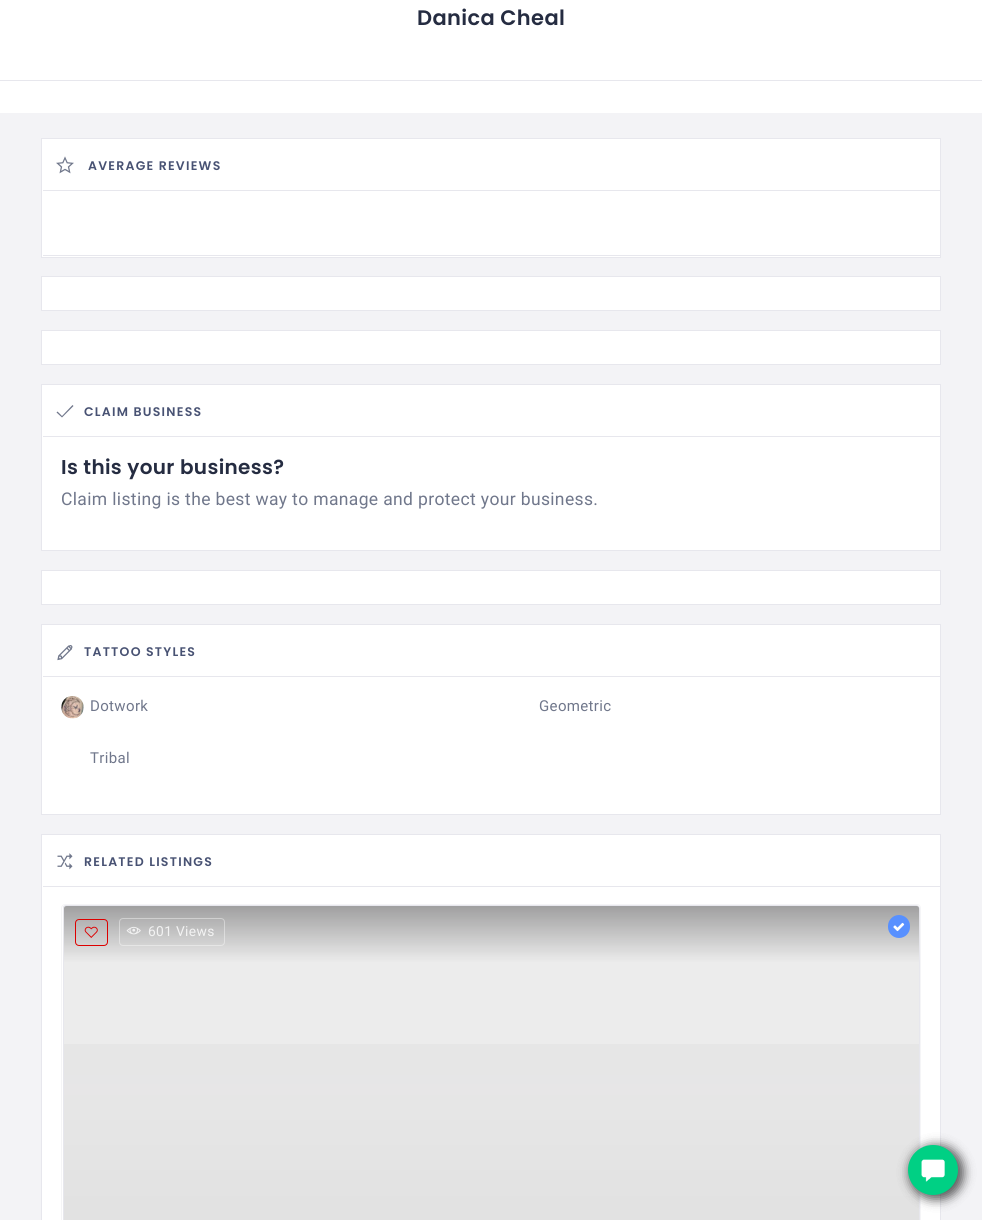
#include <cairo/cairo.h>
#include <math.h>
#include <stddef.h>


static void draw_spaced(cairo_t *cr, double x, double y, const char *s, double letter, double word) {
  cairo_move_to(cr, x, y);
  while (*s) {
    char ch[5] = {0};
    int n = 0;
    do ch[n++] = *s++; while ((*s & 0xC0) == 0x80);
    cairo_show_text(cr, ch);
    cairo_rel_move_to(cr, letter + word * (*ch == ' '), 0);
  }
}

static void rounded_rect(cairo_t *cr, double x, double y, double w, double h, double r) {
  cairo_new_sub_path(cr);
  cairo_arc(cr, x + w - r, y + h - r, r, 0, M_PI / 2);
  cairo_arc(cr, x + r, y + h - r, r, M_PI / 2, M_PI);
  cairo_arc(cr, x + r, y + r, r, M_PI, 1.5 * M_PI);
  cairo_arc(cr, x + w - r, y + r, r, 1.5 * M_PI, 2 * M_PI);
  cairo_close_path(cr);
}

static void draw_shadow(cairo_t *cr, double x, double y, double w, double h, double r, double blur, double alpha) {
  cairo_push_group_with_content(cr, CAIRO_CONTENT_ALPHA);
  cairo_set_operator(cr, CAIRO_OPERATOR_SOURCE);
  for (int i = 15; i >= -15 && fmin(w, h) + blur * i / 3 > 0; i -= 2) {
    double e = blur * i / 6;
    cairo_set_source_rgba(cr, 0, 0, 0, alpha * erfc((i - 1) / 8.5) / 2);
    rounded_rect(cr, x - e, y - e, w + 2 * e, h + 2 * e, fmax(0, fmin(r + e + blur * .6, fmin(w, h) / 2 + e)));
    cairo_fill(cr);
  }
  cairo_pattern_t *soft = cairo_pop_group(cr);
  cairo_mask(cr, soft);
  cairo_pattern_destroy(soft);
}

static void draw_image(cairo_t *cr, const char *path, double x, double y, double w, double h) {
  cairo_surface_t *image = cairo_image_surface_create_from_png(path);
  cairo_save(cr);
  cairo_set_source_surface(cr, image, x, y);
  cairo_rectangle(cr, x, y, w, h);
  cairo_fill(cr);
  cairo_restore(cr);
  cairo_surface_destroy(image);
}

static void draw(cairo_t *cr) {
  cairo_pattern_t *gradient;
  cairo_set_source_rgb(cr, 1, 1, 1);
  cairo_paint(cr);
  cairo_set_source_rgb(cr, 231 / 255.0, 231 / 255.0, 237 / 255.0);
  cairo_rectangle(cr, 0, 80, 982, 1);
  cairo_fill(cr);
  cairo_set_source_rgb(cr, 243 / 255.0, 243 / 255.0, 246 / 255.0);
  cairo_rectangle(cr, 0, 113, 982, 1107);
  cairo_fill(cr);
  cairo_set_source_rgb(cr, 1, 1, 1);
  cairo_rectangle(cr, 41.5, 138.5, 899, 119);
  cairo_fill_preserve(cr);
  cairo_set_source_rgb(cr, 231 / 255.0, 231 / 255.0, 237 / 255.0);
  cairo_set_line_width(cr, 1);
  cairo_stroke(cr);
  cairo_rectangle(cr, 43, 190, 897, 1);
  cairo_fill(cr);
  draw_image(cr, "images/1.png", 56, 156, 18, 18);
  cairo_rectangle(cr, 43, 255, 897, 1);
  cairo_fill(cr);
  cairo_set_source_rgb(cr, 1, 1, 1);
  cairo_rectangle(cr, 41.5, 276.5, 899, 34);
  cairo_fill_preserve(cr);
  cairo_set_source_rgb(cr, 231 / 255.0, 231 / 255.0, 237 / 255.0);
  cairo_stroke(cr);
  cairo_set_source_rgb(cr, 1, 1, 1);
  cairo_rectangle(cr, 41.5, 330.5, 899, 34);
  cairo_fill_preserve(cr);
  cairo_set_source_rgb(cr, 231 / 255.0, 231 / 255.0, 237 / 255.0);
  cairo_stroke(cr);
  cairo_set_source_rgb(cr, 1, 1, 1);
  cairo_rectangle(cr, 41.5, 384.5, 899, 166);
  cairo_fill_preserve(cr);
  cairo_set_source_rgb(cr, 231 / 255.0, 231 / 255.0, 237 / 255.0);
  cairo_stroke(cr);
  cairo_rectangle(cr, 43, 436, 897, 1);
  cairo_fill(cr);
  cairo_set_source_rgb(cr, 112 / 255.0, 119 / 255.0, 139 / 255.0);
  cairo_new_path(cr);
  cairo_move_to(cr, 72.5, 405);
  cairo_line_to(cr, 73.5, 406);
  cairo_line_to(cr, 62, 417.5);
  cairo_line_to(cr, 56.5, 412.5);
  cairo_line_to(cr, 57.5, 411.5);
  cairo_line_to(cr, 62, 416);
  cairo_close_path(cr);
  cairo_fill(cr);
  cairo_set_source_rgb(cr, 1, 1, 1);
  cairo_rectangle(cr, 41.5, 570.5, 899, 34);
  cairo_fill_preserve(cr);
  cairo_set_source_rgb(cr, 231 / 255.0, 231 / 255.0, 237 / 255.0);
  cairo_stroke(cr);
  cairo_set_source_rgb(cr, 1, 1, 1);
  cairo_rectangle(cr, 41.5, 624.5, 899, 190);
  cairo_fill_preserve(cr);
  cairo_set_source_rgb(cr, 231 / 255.0, 231 / 255.0, 237 / 255.0);
  cairo_stroke(cr);
  cairo_rectangle(cr, 43, 676, 897, 1);
  cairo_fill(cr);
  draw_image(cr, "images/2.png", 57, 645, 16, 16);
  draw_image(cr, "images/3.png", 61, 696, 23, 23);
  cairo_set_source_rgb(cr, 1, 1, 1);
  cairo_rectangle(cr, 41.5, 834.5, 899, 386);
  cairo_fill_preserve(cr);
  cairo_set_source_rgb(cr, 231 / 255.0, 231 / 255.0, 237 / 255.0);
  cairo_stroke(cr);
  cairo_rectangle(cr, 43, 886, 897, 1);
  cairo_fill(cr);
  draw_image(cr, "images/4.png", 57, 853, 16, 17);
  rounded_rect(cr, 61.5, 904.5, 859, 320, 3.5);
  cairo_set_source_rgb(cr, 245 / 255.0, 245 / 255.0, 247 / 255.0);
  cairo_stroke(cr);
  cairo_save(cr);
  cairo_rectangle(cr, 63, 905, 857, 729);
  cairo_clip(cr);
  cairo_set_source_rgb(cr, 231 / 255.0, 231 / 255.0, 237 / 255.0);
  cairo_set_fill_rule(cr, CAIRO_FILL_RULE_EVEN_ODD);
  cairo_new_path(cr);
  cairo_move_to(cr, 66, 905);
  cairo_line_to(cr, 916, 905);
  cairo_curve_to(cr, 918, 905, 920, 907, 920, 909);
  cairo_line_to(cr, 920, 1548);
  cairo_line_to(cr, 62, 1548);
  cairo_line_to(cr, 62, 909);
  cairo_curve_to(cr, 62, 907, 64, 905, 66, 905);
  cairo_close_path(cr);
  cairo_move_to(cr, 66, 906);
  cairo_line_to(cr, 916, 906);
  cairo_curve_to(cr, 918, 906, 919, 907, 919, 909);
  cairo_line_to(cr, 919, 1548);
  cairo_line_to(cr, 64, 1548);
  cairo_line_to(cr, 64, 909);
  cairo_curve_to(cr, 64, 907, 65, 906, 66, 906);
  cairo_close_path(cr);
  cairo_fill(cr);
  cairo_restore(cr);
  gradient = cairo_pattern_create_linear(491, 969, 491, 906);
  cairo_pattern_add_color_stop_rgba(gradient, 0.1, 18 / 255.0, 17 / 255.0, 19 / 255.0, 0);
  cairo_pattern_add_color_stop_rgba(gradient, 1, 18 / 255.0, 17 / 255.0, 19 / 255.0, 0.35);
  cairo_set_source(cr, gradient);
  cairo_pattern_destroy(gradient);
  cairo_new_path(cr);
  cairo_move_to(cr, 66.5, 906);
  cairo_line_to(cr, 916.5, 906);
  cairo_curve_to(cr, 918, 906, 919, 907, 919, 908.5);
  cairo_line_to(cr, 919, 969);
  cairo_line_to(cr, 64, 969);
  cairo_line_to(cr, 64, 908.5);
  cairo_curve_to(cr, 64, 907, 65, 906, 66.5, 906);
  cairo_close_path(cr);
  cairo_fill(cr);
  cairo_set_source_rgba(cr, 18 / 255.0, 17 / 255.0, 19 / 255.0, 0.08);
  cairo_new_path(cr);
  cairo_move_to(cr, 66.5, 906);
  cairo_line_to(cr, 916.5, 906);
  cairo_curve_to(cr, 918, 906, 919, 907, 919, 908.5);
  cairo_line_to(cr, 919, 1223);
  cairo_line_to(cr, 64, 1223);
  cairo_line_to(cr, 64, 908.5);
  cairo_curve_to(cr, 64, 907, 65, 906, 66.5, 906);
  cairo_close_path(cr);
  cairo_fill(cr);
  gradient = cairo_pattern_create_linear(491, 906, 491, 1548);
  cairo_pattern_add_color_stop_rgba(gradient, 0, 18 / 255.0, 17 / 255.0, 19 / 255.0, 0);
  cairo_pattern_add_color_stop_rgba(gradient, 0.6, 18 / 255.0, 17 / 255.0, 19 / 255.0, 0.06);
  cairo_pattern_add_color_stop_rgba(gradient, 1, 18 / 255.0, 17 / 255.0, 19 / 255.0, 0.3);
  cairo_set_source(cr, gradient);
  cairo_pattern_destroy(gradient);
  cairo_rectangle(cr, 64, 1044, 855, 176);
  cairo_fill(cr);
  cairo_set_source_rgb(cr, 88 / 255.0, 144 / 255.0, 1);
  rounded_rect(cr, 888, 915, 22, 23, 11);
  cairo_fill(cr);
  draw_image(cr, "images/5.png", 893, 922, 12, 10);
  rounded_rect(cr, 75.5, 919.5, 32, 26, 3.5);
  cairo_set_source_rgb(cr, 221 / 255.0, 0, 0);
  cairo_stroke(cr);
  draw_image(cr, "images/6.png", 84, 926, 14, 12);
  rounded_rect(cr, 119.5, 918.5, 105, 27, 3.5);
  cairo_set_source_rgba(cr, 1, 1, 1, 0.4);
  cairo_stroke(cr);
  draw_image(cr, "images/7.png", 126, 926, 15, 9);
  cairo_set_source_rgb(cr, 0, 0, 0);
  draw_shadow(cr, 910, 1146, 53, 53, 26.5, 5.5, 0.4);
  draw_shadow(cr, 910, 1146, 53, 53, 26.5, 5.5, 0.4);
  cairo_set_source_rgb(cr, 0, 208 / 255.0, 132 / 255.0);
  cairo_arc(cr, 933, 1170, 25, 0, 2 * M_PI);
  cairo_fill(cr);
  draw_image(cr, "images/8.png", 921, 1159, 24, 23);
  cairo_select_font_face(cr, "Poppins SemiBold", CAIRO_FONT_SLANT_NORMAL, CAIRO_FONT_WEIGHT_NORMAL);
  cairo_set_font_size(cr, 21);
  cairo_set_source_rgb(cr, 37 / 255.0, 44 / 255.0, 65 / 255.0);
  draw_spaced(cr, 417, 25, "Danica Cheal", 0.35, 0);
  cairo_set_font_size(cr, 12.5);
  cairo_set_source_rgb(cr, 72 / 255.0, 82 / 255.0, 115 / 255.0);
  draw_spaced(cr, 88, 170, "AVERAGE REVIEWS", 1.25, 0);
  draw_spaced(cr, 84, 416, "CLAIM BUSINESS", 1.25, 0);
  cairo_set_font_size(cr, 20);
  cairo_set_source_rgb(cr, 37 / 255.0, 44 / 255.0, 65 / 255.0);
  draw_spaced(cr, 61, 474, "Is this your business?", 0.35, 0);
  cairo_select_font_face(cr, "Roboto", CAIRO_FONT_SLANT_NORMAL, CAIRO_FONT_WEIGHT_NORMAL);
  cairo_set_font_size(cr, 17.5);
  cairo_set_source_rgb(cr, 112 / 255.0, 119 / 255.0, 139 / 255.0);
  draw_spaced(cr, 61, 505, "Claim listing is the best way to manage and protect your business.", 0.35, 0);
  cairo_select_font_face(cr, "Poppins SemiBold", CAIRO_FONT_SLANT_NORMAL, CAIRO_FONT_WEIGHT_NORMAL);
  cairo_set_font_size(cr, 12.5);
  cairo_set_source_rgb(cr, 72 / 255.0, 82 / 255.0, 115 / 255.0);
  draw_spaced(cr, 84, 656, "TATTOO STYLES", 1.25, 0);
  cairo_select_font_face(cr, "Roboto", CAIRO_FONT_SLANT_NORMAL, CAIRO_FONT_WEIGHT_NORMAL);
  cairo_set_font_size(cr, 15);
  cairo_set_source_rgb(cr, 112 / 255.0, 119 / 255.0, 139 / 255.0);
  draw_spaced(cr, 90, 711, "Dotwork", 0.35, 0);
  draw_spaced(cr, 539, 711, "Geometric", 0.35, 0);
  draw_spaced(cr, 90, 763, "Tribal", 0.35, 0);
  cairo_select_font_face(cr, "Poppins SemiBold", CAIRO_FONT_SLANT_NORMAL, CAIRO_FONT_WEIGHT_NORMAL);
  cairo_set_font_size(cr, 12.5);
  cairo_set_source_rgb(cr, 72 / 255.0, 82 / 255.0, 115 / 255.0);
  draw_spaced(cr, 84, 866, "RELATED LISTINGS", 1.25, 0);
  cairo_select_font_face(cr, "Roboto", CAIRO_FONT_SLANT_NORMAL, CAIRO_FONT_WEIGHT_NORMAL);
  cairo_set_font_size(cr, 13.75);
  cairo_set_source_rgb(cr, 243 / 255.0, 243 / 255.0, 243 / 255.0);
  draw_spaced(cr, 148, 936, "601 Views", 0.35, 0);
}

int main(void) {
  cairo_surface_t *surface = cairo_image_surface_create(CAIRO_FORMAT_RGB24, 982, 1220);
  cairo_t *cr = cairo_create(surface);
  cairo_font_options_t *options = cairo_font_options_create();
  cairo_font_options_set_hint_metrics(options, CAIRO_HINT_METRICS_OFF);
  cairo_font_options_set_hint_style(options, CAIRO_HINT_STYLE_NONE);
  cairo_set_font_options(cr, options);
  cairo_set_miter_limit(cr, 4);
  draw(cr);
  cairo_surface_write_to_png(surface, "out.png");
  cairo_font_options_destroy(options);
  cairo_destroy(cr);
  cairo_surface_destroy(surface);
  return 0;
}
